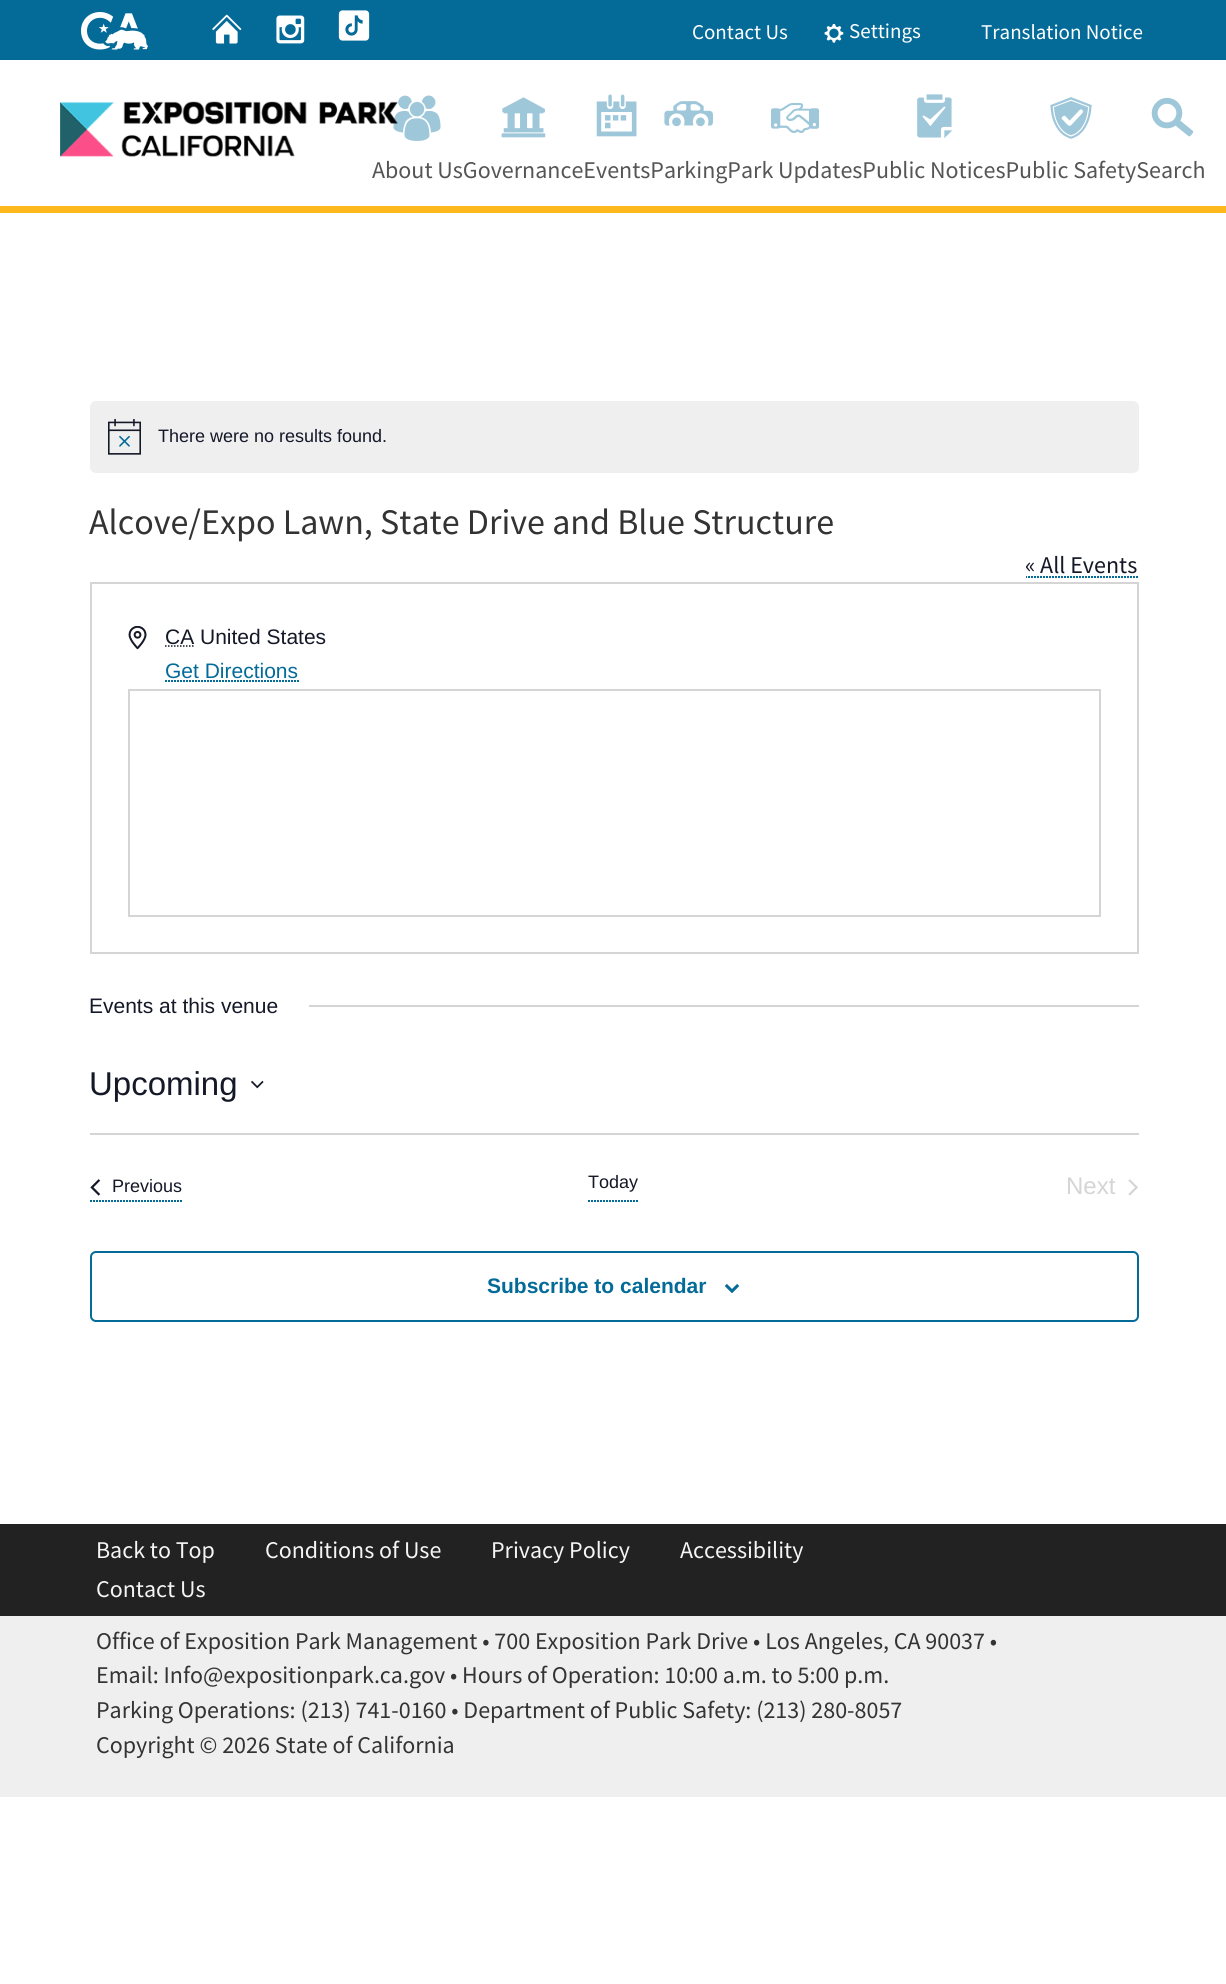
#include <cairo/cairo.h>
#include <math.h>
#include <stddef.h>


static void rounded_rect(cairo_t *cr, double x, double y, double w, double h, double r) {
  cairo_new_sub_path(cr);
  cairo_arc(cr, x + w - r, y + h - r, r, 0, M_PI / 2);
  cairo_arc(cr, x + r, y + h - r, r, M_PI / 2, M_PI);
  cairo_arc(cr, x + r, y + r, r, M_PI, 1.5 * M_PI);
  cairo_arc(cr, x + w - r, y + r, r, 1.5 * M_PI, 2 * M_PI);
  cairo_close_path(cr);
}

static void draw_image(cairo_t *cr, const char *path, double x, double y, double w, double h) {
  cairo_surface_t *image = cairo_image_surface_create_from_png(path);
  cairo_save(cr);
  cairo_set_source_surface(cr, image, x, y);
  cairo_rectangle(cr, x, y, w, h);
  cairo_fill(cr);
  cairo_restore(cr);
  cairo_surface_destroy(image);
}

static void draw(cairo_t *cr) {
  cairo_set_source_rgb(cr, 1, 1, 1);
  cairo_paint(cr);
  cairo_set_source_rgb(cr, 4 / 255.0, 107 / 255.0, 153 / 255.0);
  cairo_rectangle(cr, 0, 0, 1226, 60);
  cairo_fill(cr);
  draw_image(cr, "images/1.png", 81, 12, 67, 38);
  draw_image(cr, "images/2.png", 212, 14, 30, 30);
  draw_image(cr, "images/3.png", 276, 15, 29, 29);
  draw_image(cr, "images/4.png", 338, 10, 32, 31);
  draw_image(cr, "images/5.png", 824, 24, 20, 19);
  draw_image(cr, "images/14.png", 393, 95, 48, 46);
  draw_image(cr, "images/6.png", 60, 101, 338, 56);
  cairo_set_source_rgb(cr, 253 / 255.0, 184 / 255.0, 30 / 255.0);
  cairo_rectangle(cr, 0, 206, 1226, 7);
  cairo_fill(cr);
  draw_image(cr, "images/7.png", 501, 97, 45, 41);
  draw_image(cr, "images/8.png", 596, 94, 41, 43);
  draw_image(cr, "images/9.png", 664, 101, 49, 26);
  draw_image(cr, "images/10.png", 771, 103, 48, 30);
  draw_image(cr, "images/11.png", 917, 94, 36, 44);
  draw_image(cr, "images/12.png", 1050, 97, 42, 42);
  draw_image(cr, "images/13.png", 1151, 97, 43, 40);
  cairo_set_source_rgb(cr, 239 / 255.0, 239 / 255.0, 240 / 255.0);
  rounded_rect(cr, 90, 401, 1049, 72, 6);
  cairo_fill(cr);
  draw_image(cr, "images/15.png", 108, 419, 33, 36);
  draw_image(cr, "images/16.png", 1026, 576, 112, 2);
  cairo_rectangle(cr, 91, 583, 1047, 370);
  cairo_set_source_rgb(cr, 213 / 255.0, 213 / 255.0, 213 / 255.0);
  cairo_stroke(cr);
  draw_image(cr, "images/17.png", 128, 626, 19, 24);
  cairo_new_path(cr);
  cairo_move_to(cr, 165, 646);
  cairo_line_to(cr, 194, 646);
  cairo_set_source_rgb(cr, 20 / 255.0, 24 / 255.0, 39 / 255.0);
  cairo_set_line_width(cr, 1.5);
  cairo_set_dash(cr, (double[]){1.5, 1.5}, 2, 0);
  cairo_stroke(cr);
  draw_image(cr, "images/18.png", 165, 680, 134, 2);
  cairo_rectangle(cr, 129, 690, 971, 226);
  cairo_set_source_rgb(cr, 213 / 255.0, 213 / 255.0, 213 / 255.0);
  cairo_set_line_width(cr, 2);
  cairo_set_dash(cr, NULL, 0, 0);
  cairo_stroke(cr);
  cairo_rectangle(cr, 309, 1005, 830, 2);
  cairo_fill(cr);
  draw_image(cr, "images/19.png", 251, 1080, 13, 9);
  cairo_rectangle(cr, 90, 1133, 1049, 2);
  cairo_fill(cr);
  draw_image(cr, "images/20.png", 90, 1200, 92, 2);
  draw_image(cr, "images/21.png", 90, 1179, 11, 17);
  draw_image(cr, "images/22.png", 588, 1200, 50, 2);
  draw_image(cr, "images/23.png", 1128, 1179, 10, 17);
  rounded_rect(cr, 91, 1252, 1047, 69, 5);
  cairo_set_source_rgb(cr, 4 / 255.0, 107 / 255.0, 153 / 255.0);
  cairo_stroke(cr);
  draw_image(cr, "images/24.png", 725, 1284, 15, 9);
  cairo_set_source_rgb(cr, 34 / 255.0, 34 / 255.0, 34 / 255.0);
  cairo_rectangle(cr, 0, 1524, 1226, 92);
  cairo_fill(cr);
  cairo_set_source_rgb(cr, 239 / 255.0, 239 / 255.0, 239 / 255.0);
  cairo_rectangle(cr, 0, 1616, 1226, 181);
  cairo_fill(cr);
  cairo_select_font_face(cr, "Source Sans Pro", CAIRO_FONT_SLANT_NORMAL, CAIRO_FONT_WEIGHT_NORMAL);
  cairo_set_font_size(cr, 21);
  cairo_set_source_rgb(cr, 1, 1, 1);
  cairo_move_to(cr, 692, 39);
  cairo_show_text(cr, "Contact Us");
  cairo_move_to(cr, 849, 38);
  cairo_show_text(cr, "Settings");
  cairo_move_to(cr, 981, 39);
  cairo_show_text(cr, "Translation Notice");
  cairo_set_font_size(cr, 24);
  cairo_set_source_rgb(cr, 85 / 255.0, 85 / 255.0, 85 / 255.0);
  cairo_move_to(cr, 372, 178);
  cairo_show_text(cr, "About UsGovernanceEventsParkingPark UpdatesPublic NoticesPublic SafetySearch");
  cairo_select_font_face(cr, "Liberation Sans", CAIRO_FONT_SLANT_NORMAL, CAIRO_FONT_WEIGHT_NORMAL);
  cairo_set_font_size(cr, 18);
  cairo_set_source_rgb(cr, 20 / 255.0, 24 / 255.0, 39 / 255.0);
  cairo_move_to(cr, 158, 442);
  cairo_show_text(cr, "There were no results found.");
  cairo_select_font_face(cr, "Source Sans Pro", CAIRO_FONT_SLANT_NORMAL, CAIRO_FONT_WEIGHT_NORMAL);
  cairo_set_font_size(cr, 36);
  cairo_set_source_rgb(cr, 51 / 255.0, 51 / 255.0, 51 / 255.0);
  cairo_move_to(cr, 89, 534);
  cairo_show_text(cr, "Alcove/Expo Lawn, State Drive and Blue Structure");
  cairo_set_font_size(cr, 24);
  cairo_set_source_rgb(cr, 20 / 255.0, 24 / 255.0, 39 / 255.0);
  cairo_move_to(cr, 1025, 573);
  cairo_show_text(cr, "« All Events");
  cairo_select_font_face(cr, "Liberation Sans", CAIRO_FONT_SLANT_NORMAL, CAIRO_FONT_WEIGHT_NORMAL);
  cairo_set_font_size(cr, 21);
  cairo_move_to(cr, 165, 644);
  cairo_show_text(cr, "CA United States");
  cairo_set_source_rgb(cr, 4 / 255.0, 107 / 255.0, 153 / 255.0);
  cairo_move_to(cr, 165, 678);
  cairo_show_text(cr, "Get Directions");
  cairo_set_source_rgb(cr, 20 / 255.0, 24 / 255.0, 39 / 255.0);
  cairo_move_to(cr, 89, 1013);
  cairo_show_text(cr, "Events at this venue");
  cairo_set_font_size(cr, 33);
  cairo_move_to(cr, 89, 1095);
  cairo_show_text(cr, "Upcoming");
  cairo_set_font_size(cr, 18);
  cairo_move_to(cr, 112, 1192);
  cairo_show_text(cr, "Previous");
  cairo_move_to(cr, 588, 1188);
  cairo_show_text(cr, "Today");
  cairo_set_font_size(cr, 24);
  cairo_set_source_rgb(cr, 213 / 255.0, 213 / 255.0, 213 / 255.0);
  cairo_move_to(cr, 1066, 1194);
  cairo_show_text(cr, "Next");
  cairo_select_font_face(cr, "Liberation Sans", CAIRO_FONT_SLANT_NORMAL, CAIRO_FONT_WEIGHT_BOLD);
  cairo_set_font_size(cr, 21);
  cairo_set_source_rgb(cr, 4 / 255.0, 107 / 255.0, 153 / 255.0);
  cairo_move_to(cr, 487, 1293);
  cairo_show_text(cr, "Subscribe to calendar");
  cairo_select_font_face(cr, "Source Sans Pro", CAIRO_FONT_SLANT_NORMAL, CAIRO_FONT_WEIGHT_NORMAL);
  cairo_set_font_size(cr, 24);
  cairo_set_source_rgb(cr, 245 / 255.0, 245 / 255.0, 245 / 255.0);
  cairo_move_to(cr, 96, 1558);
  cairo_show_text(cr, "Back to Top");
  cairo_move_to(cr, 265, 1558);
  cairo_show_text(cr, "Conditions of Use");
  cairo_move_to(cr, 491, 1558);
  cairo_show_text(cr, "Privacy Policy");
  cairo_move_to(cr, 680, 1558);
  cairo_show_text(cr, "Accessibility");
  cairo_move_to(cr, 96, 1597);
  cairo_show_text(cr, "Contact Us");
  cairo_set_source_rgb(cr, 51 / 255.0, 51 / 255.0, 51 / 255.0);
  cairo_move_to(cr, 96, 1649);
  cairo_show_text(cr, "Office of Exposition Park Management • 700 Exposition Park Drive • Los Angeles, CA 90037 •");
  cairo_move_to(cr, 96, 1683);
  cairo_show_text(cr, "Email: Info@expositionpark.ca.gov • Hours of Operation: 10:00 a.m. to 5:00 p.m.");
  cairo_move_to(cr, 96, 1718);
  cairo_show_text(cr, "Parking Operations: (213) 741-0160 • Department of Public Safety: (213) 280-8057");
  cairo_move_to(cr, 96, 1753);
  cairo_show_text(cr, "Copyright © 2026 State of California");
}

int main(void) {
  cairo_surface_t *surface = cairo_image_surface_create(CAIRO_FORMAT_RGB24, 1226, 1984);
  cairo_t *cr = cairo_create(surface);
  cairo_font_options_t *options = cairo_font_options_create();
  cairo_font_options_set_hint_metrics(options, CAIRO_HINT_METRICS_OFF);
  cairo_font_options_set_hint_style(options, CAIRO_HINT_STYLE_NONE);
  cairo_set_font_options(cr, options);
  cairo_set_miter_limit(cr, 4);
  draw(cr);
  cairo_surface_write_to_png(surface, "out.png");
  cairo_font_options_destroy(options);
  cairo_destroy(cr);
  cairo_surface_destroy(surface);
  return 0;
}
